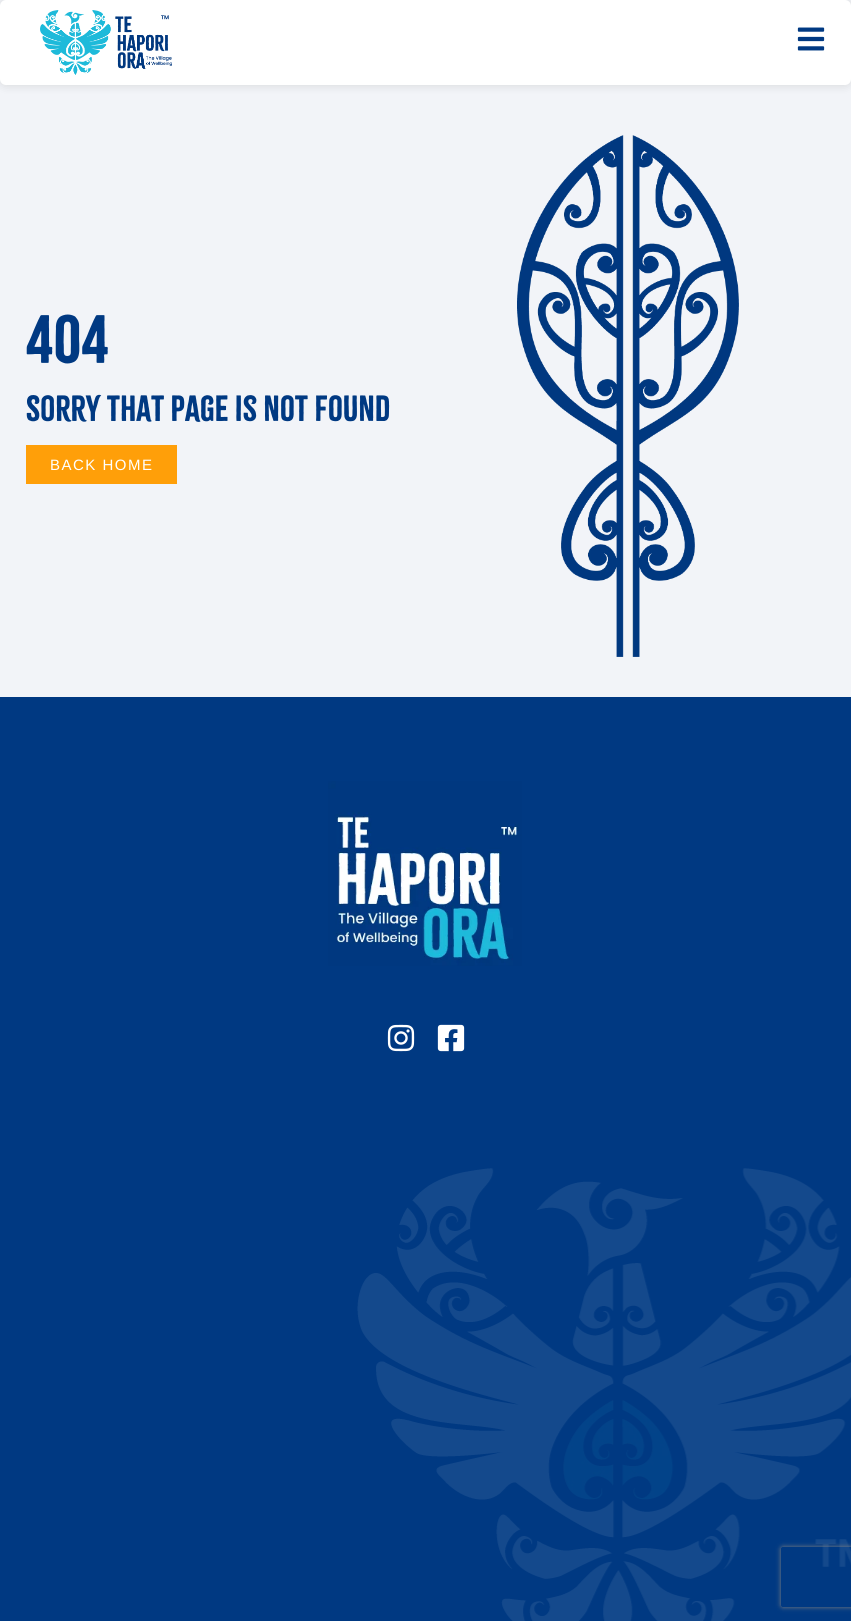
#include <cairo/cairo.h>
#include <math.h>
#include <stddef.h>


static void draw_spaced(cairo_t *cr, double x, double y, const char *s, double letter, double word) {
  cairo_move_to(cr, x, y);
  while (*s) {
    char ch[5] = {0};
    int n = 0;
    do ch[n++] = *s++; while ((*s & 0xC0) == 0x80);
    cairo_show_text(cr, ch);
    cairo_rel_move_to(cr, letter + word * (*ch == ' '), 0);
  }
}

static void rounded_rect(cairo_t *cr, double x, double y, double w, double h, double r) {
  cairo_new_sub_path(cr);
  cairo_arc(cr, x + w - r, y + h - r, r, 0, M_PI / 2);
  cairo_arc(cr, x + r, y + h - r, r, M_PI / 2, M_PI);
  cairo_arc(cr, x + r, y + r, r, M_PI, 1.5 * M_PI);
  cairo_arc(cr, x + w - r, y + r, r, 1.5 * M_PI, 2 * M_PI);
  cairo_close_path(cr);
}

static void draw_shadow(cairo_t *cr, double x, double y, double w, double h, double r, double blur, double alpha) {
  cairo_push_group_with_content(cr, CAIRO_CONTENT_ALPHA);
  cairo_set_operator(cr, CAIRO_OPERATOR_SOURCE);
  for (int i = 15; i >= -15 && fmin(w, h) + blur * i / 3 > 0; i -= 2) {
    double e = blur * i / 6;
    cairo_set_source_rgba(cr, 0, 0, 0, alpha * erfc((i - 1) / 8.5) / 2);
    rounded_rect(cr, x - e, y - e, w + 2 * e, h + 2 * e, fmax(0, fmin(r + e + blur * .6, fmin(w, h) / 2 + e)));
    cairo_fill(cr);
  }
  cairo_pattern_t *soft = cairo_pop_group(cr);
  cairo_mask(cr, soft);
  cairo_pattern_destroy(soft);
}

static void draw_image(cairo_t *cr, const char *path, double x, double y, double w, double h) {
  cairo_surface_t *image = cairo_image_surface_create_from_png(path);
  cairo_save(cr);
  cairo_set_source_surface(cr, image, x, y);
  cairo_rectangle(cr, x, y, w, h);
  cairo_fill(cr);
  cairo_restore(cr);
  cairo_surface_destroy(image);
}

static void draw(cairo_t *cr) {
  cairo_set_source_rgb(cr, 242 / 255.0, 244 / 255.0, 248 / 255.0);
  cairo_paint(cr);
  cairo_set_source_rgb(cr, 0, 0, 0);
  draw_shadow(cr, 0, 0, 851, 85, 6, 5, 0.13);
  cairo_set_source_rgb(cr, 1, 1, 1);
  rounded_rect(cr, 0, 0, 851, 85, 6);
  cairo_fill(cr);
  draw_image(cr, "images/1.png", 40, 10, 132, 65);
  draw_image(cr, "images/2.png", 797, 27, 28, 24);
  cairo_set_source_rgb(cr, 1, 159 / 255.0, 9 / 255.0);
  cairo_rectangle(cr, 26, 445, 151, 39);
  cairo_fill(cr);
  draw_image(cr, "images/3.png", 517, 135, 222, 522);
  cairo_set_source_rgb(cr, 0, 57 / 255.0, 130 / 255.0);
  cairo_rectangle(cr, 0, 697, 851, 924);
  cairo_fill(cr);
  draw_image(cr, "images/4.png", 357, 1168, 494, 453);
  draw_image(cr, "images/5.png", 328, 781, 194, 185);
  draw_image(cr, "images/6.png", 387, 1024, 28, 28);
  draw_image(cr, "images/7.png", 437, 1024, 28, 28);
  cairo_save(cr);
  cairo_set_fill_rule(cr, CAIRO_FILL_RULE_EVEN_ODD);
  cairo_new_path(cr);
  cairo_move_to(cr, 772, 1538);
  cairo_line_to(cr, 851, 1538);
  cairo_line_to(cr, 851, 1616);
  cairo_line_to(cr, 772, 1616);
  cairo_close_path(cr);
  cairo_move_to(cr, 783, 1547);
  cairo_line_to(cr, 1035, 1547);
  cairo_curve_to(cr, 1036, 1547, 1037, 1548, 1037, 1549);
  cairo_line_to(cr, 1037, 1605);
  cairo_curve_to(cr, 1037, 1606, 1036, 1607, 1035, 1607);
  cairo_line_to(cr, 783, 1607);
  cairo_curve_to(cr, 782, 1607, 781, 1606, 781, 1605);
  cairo_line_to(cr, 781, 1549);
  cairo_curve_to(cr, 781, 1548, 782, 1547, 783, 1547);
  cairo_close_path(cr);
  cairo_clip(cr);
  cairo_set_source_rgb(cr, 128 / 255.0, 128 / 255.0, 128 / 255.0);
  draw_shadow(cr, 781, 1547, 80, 60, 2, 2.5, 1);
  cairo_restore(cr);
  cairo_select_font_face(cr, "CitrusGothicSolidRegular", CAIRO_FONT_SLANT_NORMAL, CAIRO_FONT_WEIGHT_NORMAL);
  cairo_set_font_size(cr, 60);
  cairo_move_to(cr, 26, 363);
  cairo_show_text(cr, "404");
  cairo_set_font_size(cr, 32);
  cairo_move_to(cr, 26, 421);
  cairo_show_text(cr, "Sorry that PAGE is NOT FOUND");
  cairo_select_font_face(cr, "Liberation Sans", CAIRO_FONT_SLANT_NORMAL, CAIRO_FONT_WEIGHT_NORMAL);
  cairo_set_font_size(cr, 15);
  cairo_set_source_rgb(cr, 1, 1, 1);
  draw_spaced(cr, 50, 470, "BACK HOME", 1.5, 0);
}

int main(void) {
  cairo_surface_t *surface = cairo_image_surface_create(CAIRO_FORMAT_RGB24, 851, 1621);
  cairo_t *cr = cairo_create(surface);
  cairo_font_options_t *options = cairo_font_options_create();
  cairo_font_options_set_hint_metrics(options, CAIRO_HINT_METRICS_OFF);
  cairo_font_options_set_hint_style(options, CAIRO_HINT_STYLE_NONE);
  cairo_set_font_options(cr, options);
  cairo_set_miter_limit(cr, 4);
  draw(cr);
  cairo_surface_write_to_png(surface, "out.png");
  cairo_font_options_destroy(options);
  cairo_destroy(cr);
  cairo_surface_destroy(surface);
  return 0;
}
